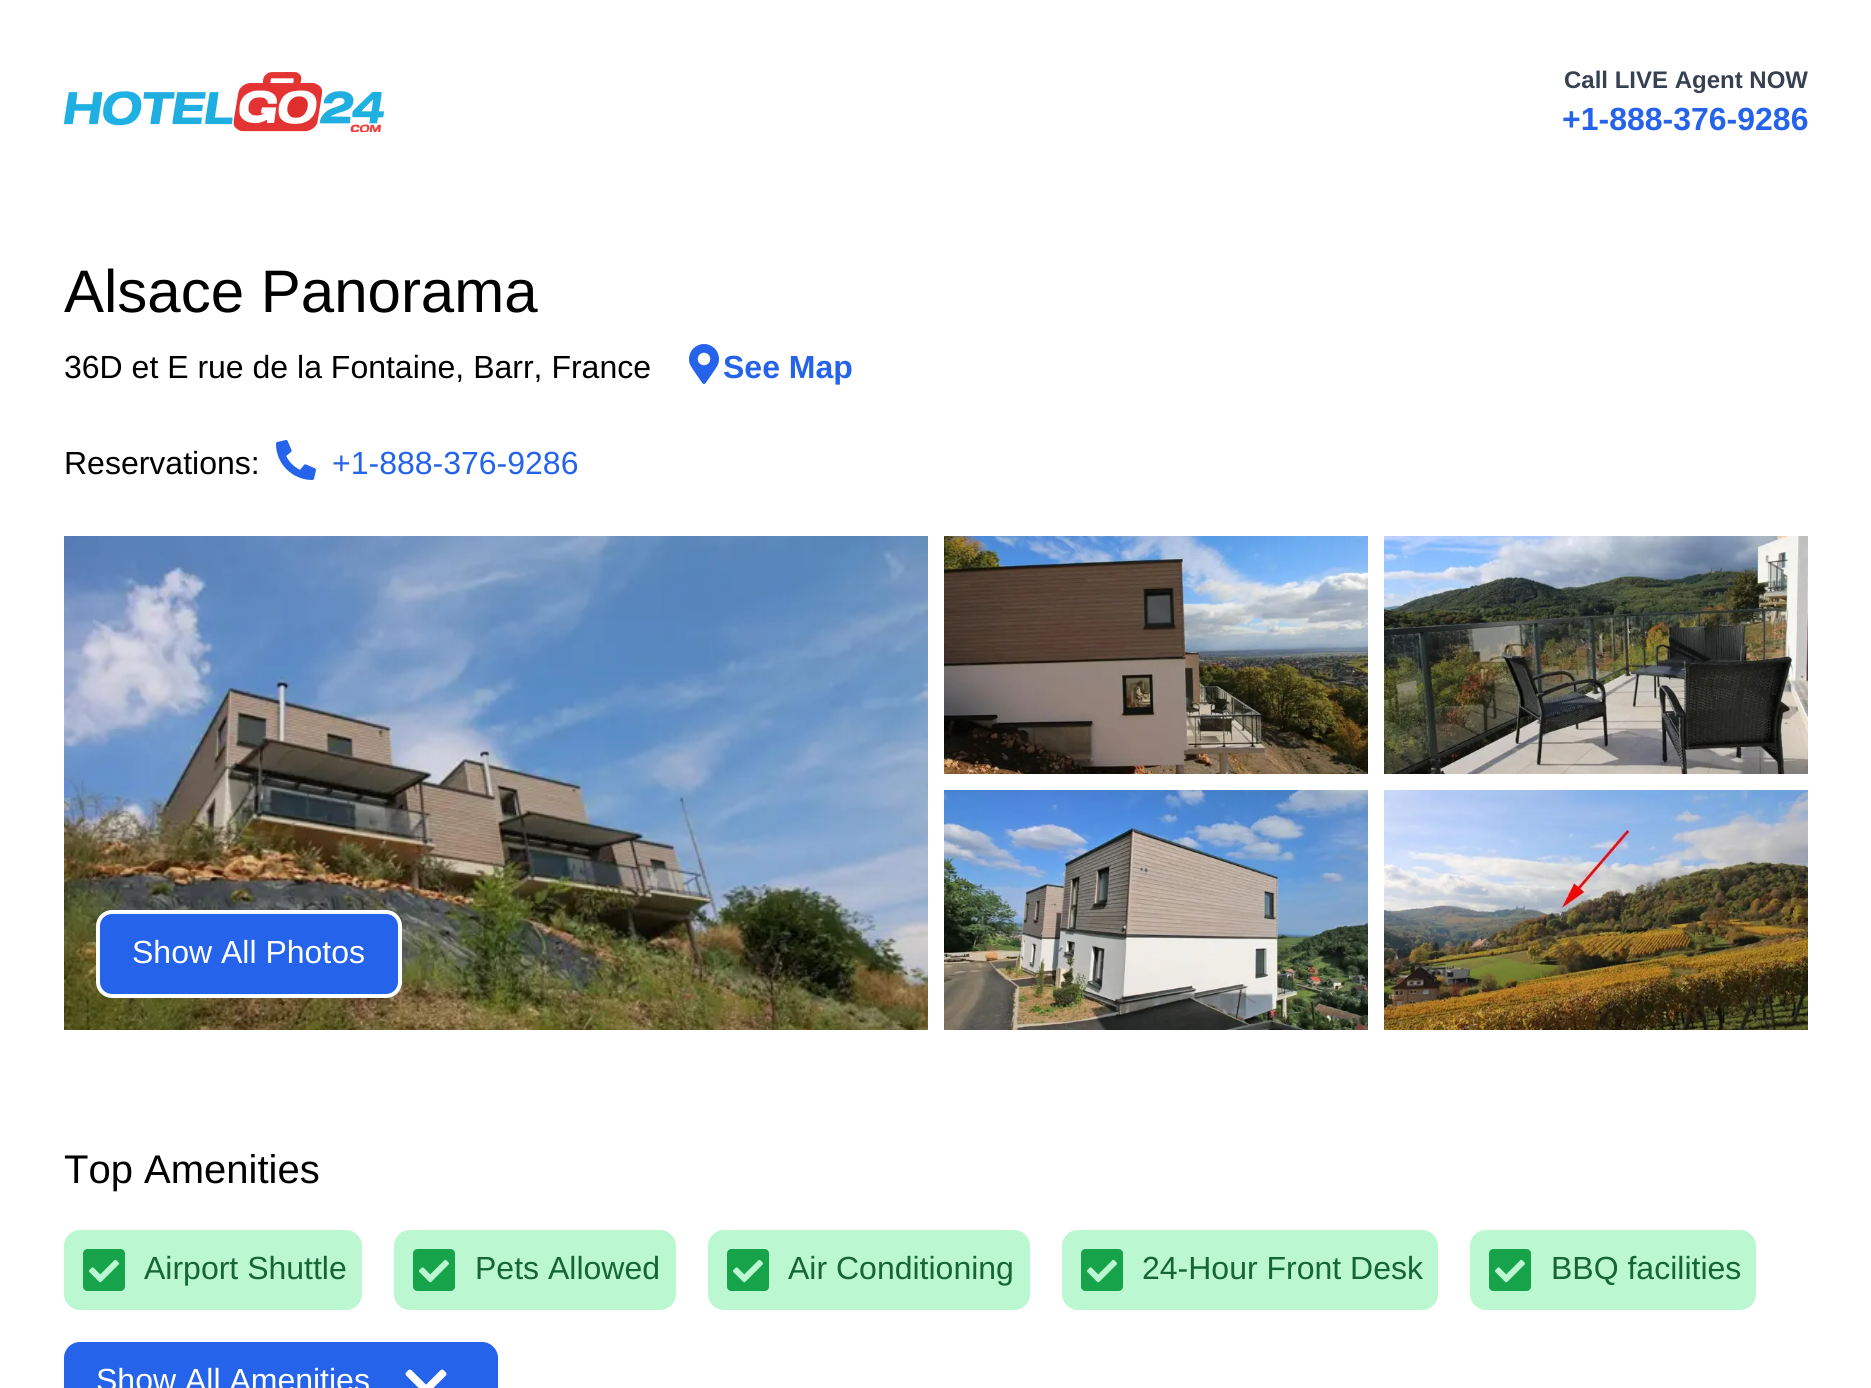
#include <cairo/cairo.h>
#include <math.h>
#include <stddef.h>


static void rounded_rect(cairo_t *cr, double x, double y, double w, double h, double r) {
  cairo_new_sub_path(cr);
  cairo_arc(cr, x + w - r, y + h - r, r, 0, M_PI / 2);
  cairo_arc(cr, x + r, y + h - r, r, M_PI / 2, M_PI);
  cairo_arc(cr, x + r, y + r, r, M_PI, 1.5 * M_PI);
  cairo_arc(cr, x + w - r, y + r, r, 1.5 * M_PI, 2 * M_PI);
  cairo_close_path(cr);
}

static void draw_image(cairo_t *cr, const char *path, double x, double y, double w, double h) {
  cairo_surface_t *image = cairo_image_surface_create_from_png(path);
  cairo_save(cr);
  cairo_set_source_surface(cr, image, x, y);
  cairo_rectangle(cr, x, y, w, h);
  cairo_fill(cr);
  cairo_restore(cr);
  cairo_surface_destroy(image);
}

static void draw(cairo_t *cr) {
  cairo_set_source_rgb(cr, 1, 1, 1);
  cairo_paint(cr);
  draw_image(cr, "images/1.png", 64, 72, 320, 60);
  draw_image(cr, "images/2.png", 689, 344, 30, 40);
  draw_image(cr, "images/3.png", 276, 440, 40, 40);
  draw_image(cr, "images/4.png", 64, 536, 864, 494);
  draw_image(cr, "images/5.png", 944, 536, 424, 238);
  draw_image(cr, "images/6.png", 1384, 536, 424, 238);
  draw_image(cr, "images/7.png", 944, 790, 424, 240);
  draw_image(cr, "images/8.png", 1384, 790, 424, 240);
  cairo_set_source_rgb(cr, 37 / 255.0, 99 / 255.0, 235 / 255.0);
  rounded_rect(cr, 98, 912, 302, 84, 14);
  cairo_fill_preserve(cr);
  cairo_set_source_rgb(cr, 1, 1, 1);
  cairo_set_line_width(cr, 4);
  cairo_stroke(cr);
  cairo_set_source_rgb(cr, 187 / 255.0, 247 / 255.0, 208 / 255.0);
  rounded_rect(cr, 64, 1230, 298, 80, 16);
  cairo_fill(cr);
  draw_image(cr, "images/9.png", 83, 1249, 42, 42);
  rounded_rect(cr, 394, 1230, 282, 80, 16);
  cairo_fill(cr);
  draw_image(cr, "images/9.png", 413, 1249, 42, 42);
  rounded_rect(cr, 708, 1230, 322, 80, 16);
  cairo_fill(cr);
  draw_image(cr, "images/9.png", 727, 1249, 42, 42);
  rounded_rect(cr, 1062, 1230, 376, 80, 16);
  cairo_fill(cr);
  draw_image(cr, "images/9.png", 1081, 1249, 42, 42);
  rounded_rect(cr, 1470, 1230, 286, 80, 16);
  cairo_fill(cr);
  draw_image(cr, "images/9.png", 1489, 1249, 42, 42);
  cairo_set_source_rgb(cr, 37 / 255.0, 99 / 255.0, 235 / 255.0);
  rounded_rect(cr, 64, 1342, 434, 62, 16);
  cairo_fill(cr);
  draw_image(cr, "images/10.png", 405, 1369, 42, 19);
  cairo_select_font_face(cr, "Liberation Sans", CAIRO_FONT_SLANT_NORMAL, CAIRO_FONT_WEIGHT_BOLD);
  cairo_set_font_size(cr, 24);
  cairo_set_source_rgb(cr, 55 / 255.0, 65 / 255.0, 81 / 255.0);
  cairo_move_to(cr, 1564, 88);
  cairo_show_text(cr, "Call LIVE Agent NOW");
  cairo_set_font_size(cr, 32);
  cairo_set_source_rgb(cr, 37 / 255.0, 99 / 255.0, 235 / 255.0);
  cairo_move_to(cr, 1562, 130);
  cairo_show_text(cr, "+1-888-376-9286");
  cairo_select_font_face(cr, "Liberation Sans", CAIRO_FONT_SLANT_NORMAL, CAIRO_FONT_WEIGHT_NORMAL);
  cairo_set_font_size(cr, 60);
  cairo_set_source_rgb(cr, 0, 0, 0);
  cairo_move_to(cr, 64, 312);
  cairo_show_text(cr, "Alsace Panorama");
  cairo_set_font_size(cr, 32);
  cairo_move_to(cr, 64, 378);
  cairo_show_text(cr, "36D et E rue de la Fontaine, Barr, France");
  cairo_select_font_face(cr, "Liberation Sans", CAIRO_FONT_SLANT_NORMAL, CAIRO_FONT_WEIGHT_BOLD);
  cairo_set_source_rgb(cr, 37 / 255.0, 99 / 255.0, 235 / 255.0);
  cairo_move_to(cr, 723, 378);
  cairo_show_text(cr, "See Map");
  cairo_select_font_face(cr, "Liberation Sans", CAIRO_FONT_SLANT_NORMAL, CAIRO_FONT_WEIGHT_NORMAL);
  cairo_set_source_rgb(cr, 0, 0, 0);
  cairo_move_to(cr, 64, 474);
  cairo_show_text(cr, "Reservations:");
  cairo_set_source_rgb(cr, 37 / 255.0, 99 / 255.0, 235 / 255.0);
  cairo_move_to(cr, 332, 474);
  cairo_show_text(cr, "+1-888-376-9286");
  cairo_set_source_rgb(cr, 1, 1, 1);
  cairo_move_to(cr, 132, 963);
  cairo_show_text(cr, "Show All Photos");
  cairo_set_font_size(cr, 40);
  cairo_set_source_rgb(cr, 0, 0, 0);
  cairo_move_to(cr, 64, 1183);
  cairo_show_text(cr, "Top Amenities");
  cairo_set_font_size(cr, 32);
  cairo_set_source_rgb(cr, 22 / 255.0, 101 / 255.0, 52 / 255.0);
  cairo_move_to(cr, 144, 1279);
  cairo_show_text(cr, "Airport Shuttle");
  cairo_move_to(cr, 475, 1279);
  cairo_show_text(cr, "Pets Allowed");
  cairo_move_to(cr, 788, 1279);
  cairo_show_text(cr, "Air Conditioning");
  cairo_move_to(cr, 1142, 1279);
  cairo_show_text(cr, "24-Hour Front Desk");
  cairo_move_to(cr, 1551, 1279);
  cairo_show_text(cr, "BBQ facilities");
  cairo_set_source_rgb(cr, 1, 1, 1);
  cairo_move_to(cr, 96, 1391);
  cairo_show_text(cr, "Show All Amenities");
}

int main(void) {
  cairo_surface_t *surface = cairo_image_surface_create(CAIRO_FORMAT_RGB24, 1871, 1388);
  cairo_t *cr = cairo_create(surface);
  cairo_font_options_t *options = cairo_font_options_create();
  cairo_font_options_set_hint_metrics(options, CAIRO_HINT_METRICS_OFF);
  cairo_font_options_set_hint_style(options, CAIRO_HINT_STYLE_NONE);
  cairo_set_font_options(cr, options);
  cairo_set_miter_limit(cr, 4);
  draw(cr);
  cairo_surface_write_to_png(surface, "out.png");
  cairo_font_options_destroy(options);
  cairo_destroy(cr);
  cairo_surface_destroy(surface);
  return 0;
}
